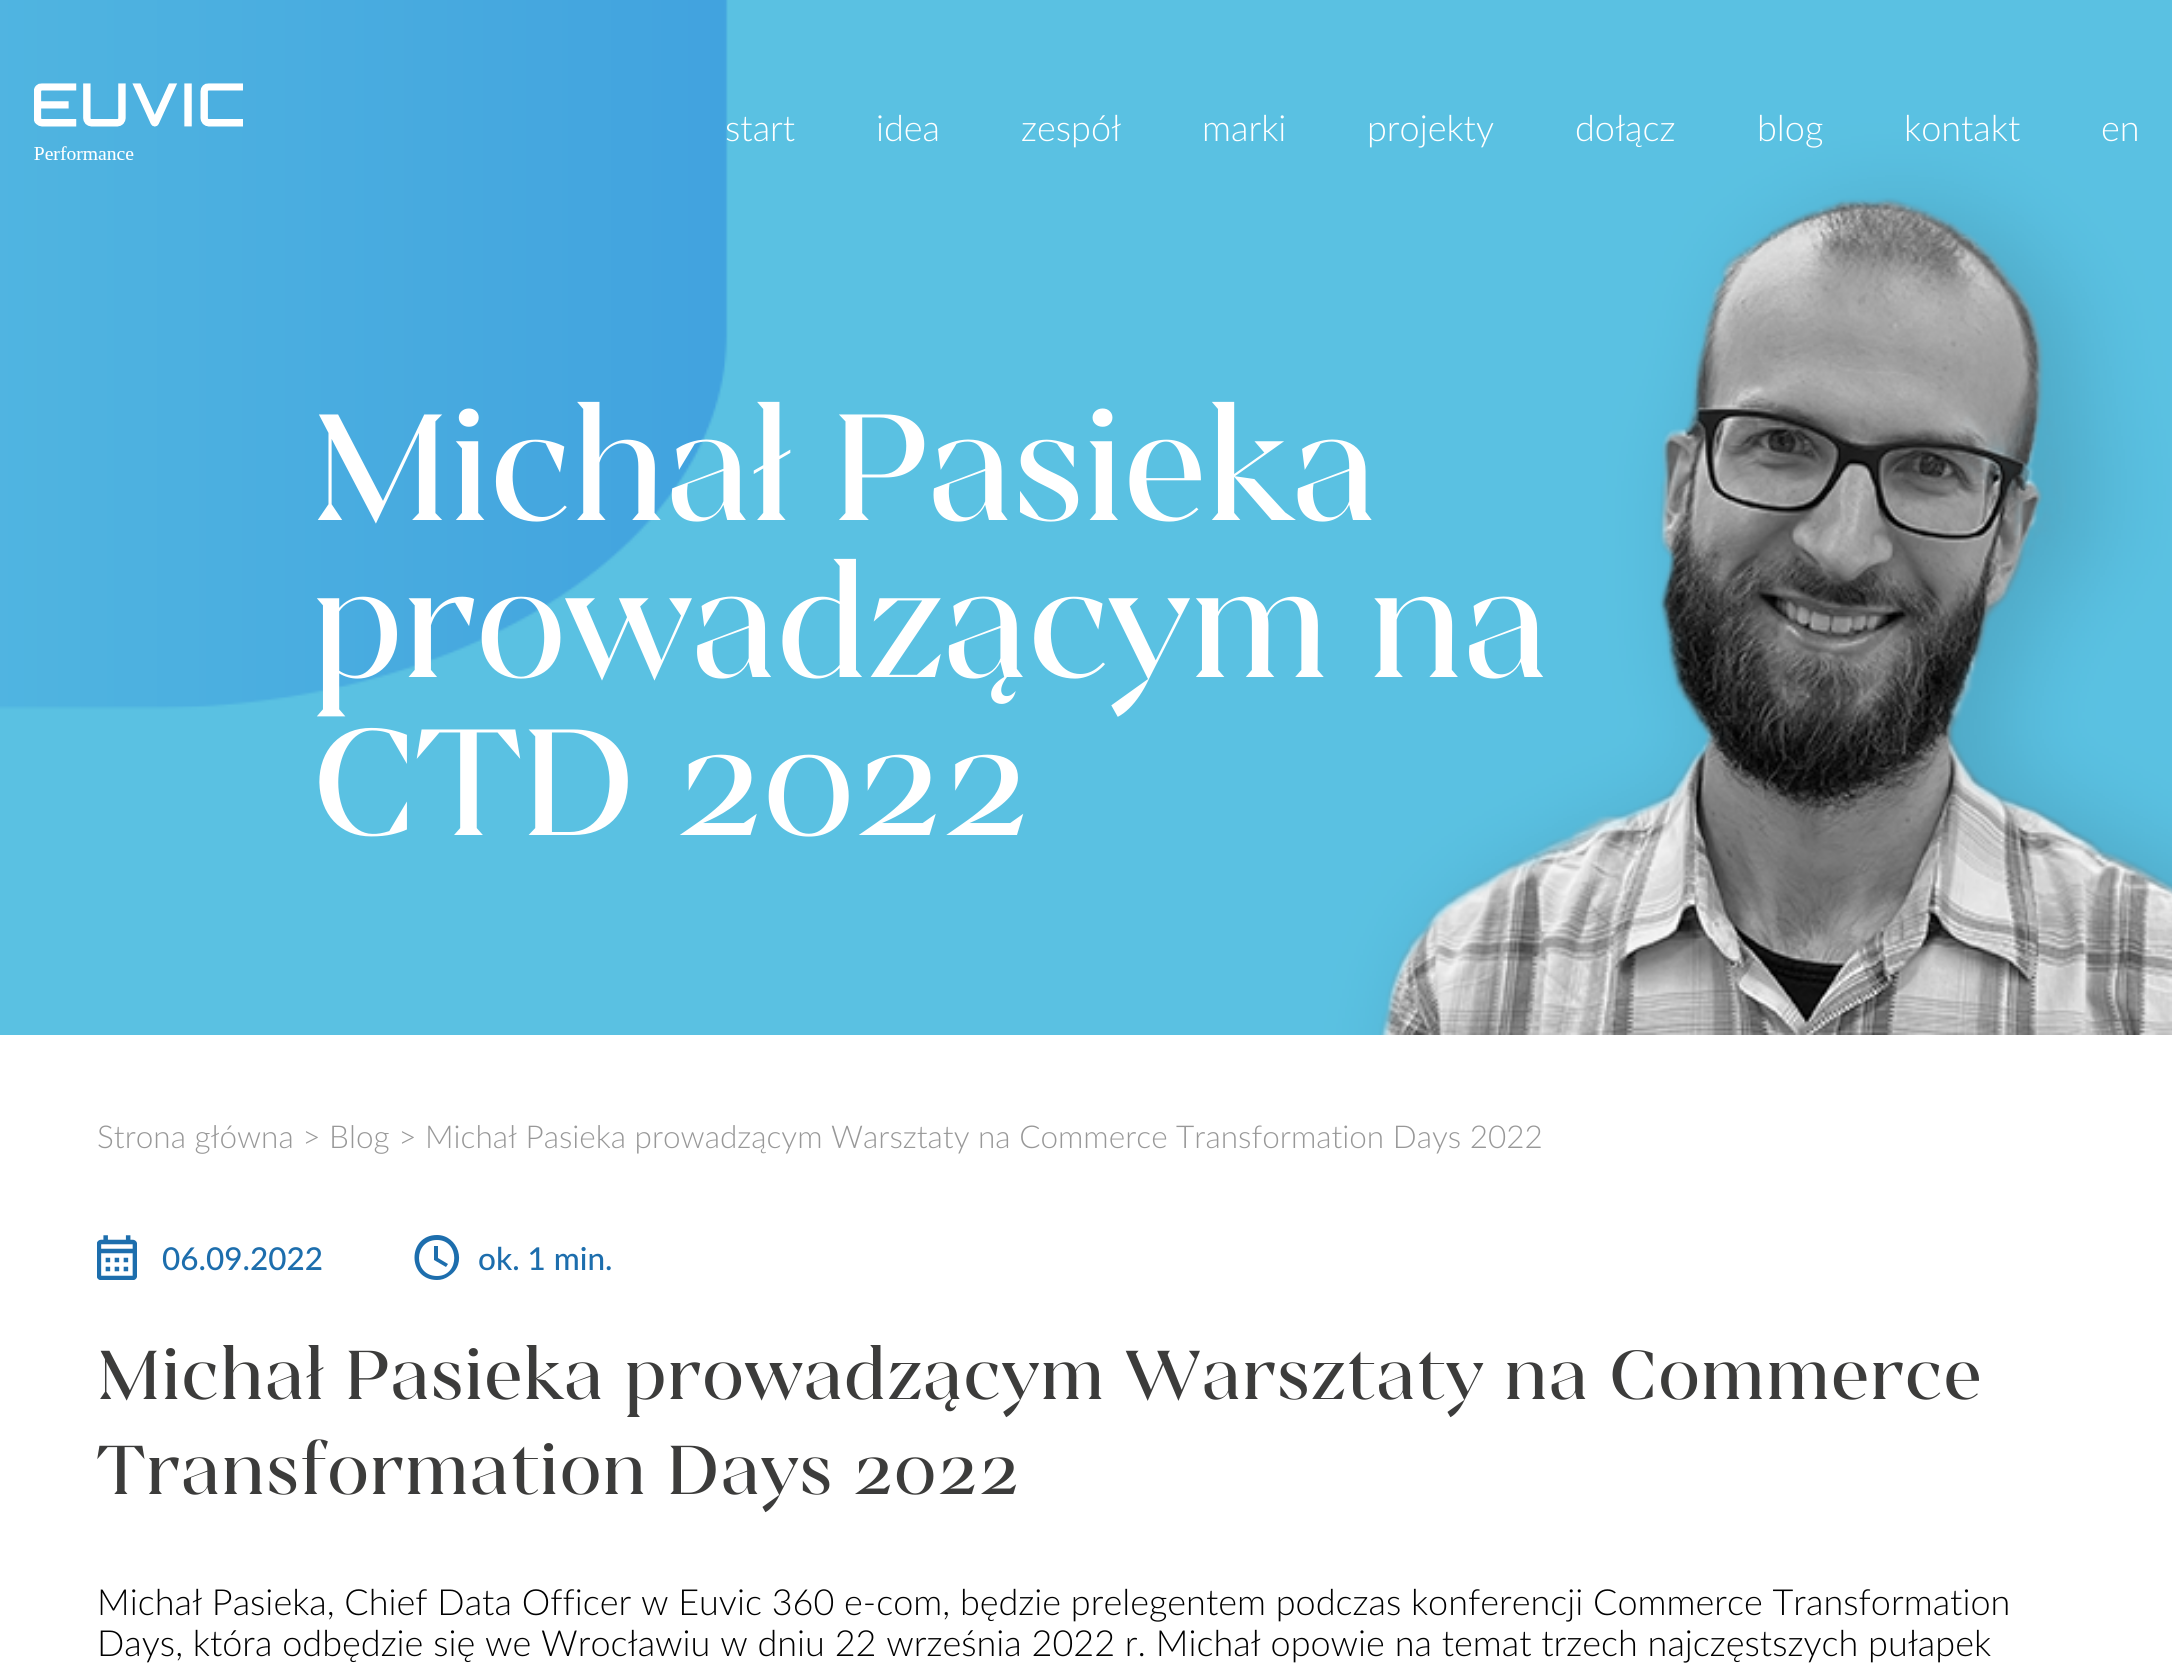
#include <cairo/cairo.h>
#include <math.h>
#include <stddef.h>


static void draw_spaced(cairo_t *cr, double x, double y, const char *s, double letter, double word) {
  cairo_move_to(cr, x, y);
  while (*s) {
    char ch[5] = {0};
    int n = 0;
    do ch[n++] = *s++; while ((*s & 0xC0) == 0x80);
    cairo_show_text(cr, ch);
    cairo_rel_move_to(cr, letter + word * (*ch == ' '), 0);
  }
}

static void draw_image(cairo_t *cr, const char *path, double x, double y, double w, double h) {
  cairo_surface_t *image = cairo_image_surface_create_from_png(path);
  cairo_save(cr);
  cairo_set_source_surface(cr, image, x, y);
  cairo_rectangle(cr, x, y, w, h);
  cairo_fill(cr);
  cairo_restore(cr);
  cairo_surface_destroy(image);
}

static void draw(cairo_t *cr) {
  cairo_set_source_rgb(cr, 1, 1, 1);
  cairo_paint(cr);
  draw_image(cr, "images/2.png", 0, 0, 2172, 1035);
  draw_image(cr, "images/1.png", 34, 83, 209, 77);
  draw_image(cr, "images/3.png", 97, 1235, 40, 45);
  cairo_set_source_rgb(cr, 29 / 255.0, 110 / 255.0, 173 / 255.0);
  cairo_new_path(cr);
  cairo_move_to(cr, 437, 1235);
  cairo_curve_to(cr, 407, 1235, 407, 1280, 437, 1280);
  cairo_curve_to(cr, 441, 1280, 445, 1279, 449, 1276);
  cairo_curve_to(cr, 468, 1264, 458, 1235, 437, 1235);
  cairo_close_path(cr);
  cairo_move_to(cr, 437, 1276);
  cairo_curve_to(cr, 413, 1276, 413, 1240, 437, 1240);
  cairo_curve_to(cr, 460, 1240, 460, 1276, 437, 1276);
  cairo_close_path(cr);
  cairo_move_to(cr, 438, 1246);
  cairo_line_to(cr, 434, 1246);
  cairo_line_to(cr, 434, 1260);
  cairo_line_to(cr, 446, 1267);
  cairo_line_to(cr, 448, 1264);
  cairo_line_to(cr, 438, 1258);
  cairo_close_path(cr);
  cairo_fill(cr);
  cairo_select_font_face(cr, "Lato Light", CAIRO_FONT_SLANT_NORMAL, CAIRO_FONT_WEIGHT_NORMAL);
  cairo_set_font_size(cr, 36);
  cairo_set_source_rgb(cr, 1, 1, 1);
  cairo_move_to(cr, 725, 141);
  cairo_show_text(cr, "start");
  cairo_move_to(cr, 876, 141);
  cairo_show_text(cr, "idea");
  cairo_move_to(cr, 1021, 141);
  cairo_show_text(cr, "zespół");
  cairo_move_to(cr, 1202, 141);
  cairo_show_text(cr, "marki");
  cairo_move_to(cr, 1367, 141);
  cairo_show_text(cr, "projekty");
  cairo_move_to(cr, 1575, 141);
  cairo_show_text(cr, "dołącz");
  cairo_move_to(cr, 1757, 141);
  cairo_show_text(cr, "blog");
  cairo_move_to(cr, 1904, 141);
  cairo_show_text(cr, "kontakt");
  cairo_move_to(cr, 2101, 141);
  cairo_show_text(cr, "en");
  cairo_select_font_face(cr, "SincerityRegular", CAIRO_FONT_SLANT_NORMAL, CAIRO_FONT_WEIGHT_NORMAL);
  cairo_set_font_size(cr, 157.5);
  cairo_move_to(cr, 311, 520);
  cairo_show_text(cr, "Michał Pasieka");
  cairo_move_to(cr, 311, 677);
  cairo_show_text(cr, "prowadzącym na");
  cairo_move_to(cr, 311, 835);
  cairo_show_text(cr, "CTD 2022");
  cairo_select_font_face(cr, "Lato Light", CAIRO_FONT_SLANT_NORMAL, CAIRO_FONT_WEIGHT_NORMAL);
  cairo_set_font_size(cr, 31.5);
  cairo_set_source_rgb(cr, 152 / 255.0, 152 / 255.0, 152 / 255.0);
  cairo_move_to(cr, 97, 1148);
  cairo_show_text(cr, "Strona główna > Blog > Michał Pasieka prowadzącym Warsztaty na Commerce Transformation Days 2022");
  cairo_select_font_face(cr, "Lato Medium", CAIRO_FONT_SLANT_NORMAL, CAIRO_FONT_WEIGHT_NORMAL);
  cairo_set_source_rgb(cr, 29 / 255.0, 110 / 255.0, 173 / 255.0);
  cairo_move_to(cr, 162, 1270);
  cairo_show_text(cr, "06.09.2022");
  cairo_move_to(cr, 478, 1270);
  cairo_show_text(cr, "ok. 1 min.");
  cairo_select_font_face(cr, "SincerityRegular", CAIRO_FONT_SLANT_NORMAL, CAIRO_FONT_WEIGHT_NORMAL);
  cairo_set_font_size(cr, 72);
  cairo_set_source_rgb(cr, 60 / 255.0, 60 / 255.0, 59 / 255.0);
  draw_spaced(cr, 97, 1399, "Michał Pasieka prowadzącym Warsztaty na Commerce", 1.45, 0);
  draw_spaced(cr, 97, 1494, "Transformation Days 2022", 1.45, 0);
  cairo_select_font_face(cr, "Lato Light", CAIRO_FONT_SLANT_NORMAL, CAIRO_FONT_WEIGHT_NORMAL);
  cairo_set_font_size(cr, 36);
  cairo_set_source_rgb(cr, 0, 0, 0);
  cairo_move_to(cr, 97, 1615);
  cairo_show_text(cr, "Michał Pasieka, Chief Data Officer w Euvic 360 e-com, będzie prelegentem podczas konferencji Commerce Transformation");
  cairo_move_to(cr, 97, 1656);
  cairo_show_text(cr, "Days, która odbędzie się we Wrocławiu w dniu 22 września 2022 r. Michał opowie na temat trzech najczęstszych pułapek");
}

int main(void) {
  cairo_surface_t *surface = cairo_image_surface_create(CAIRO_FORMAT_RGB24, 2172, 1668);
  cairo_t *cr = cairo_create(surface);
  cairo_font_options_t *options = cairo_font_options_create();
  cairo_font_options_set_hint_metrics(options, CAIRO_HINT_METRICS_OFF);
  cairo_font_options_set_hint_style(options, CAIRO_HINT_STYLE_NONE);
  cairo_set_font_options(cr, options);
  cairo_set_miter_limit(cr, 4);
  draw(cr);
  cairo_surface_write_to_png(surface, "out.png");
  cairo_font_options_destroy(options);
  cairo_destroy(cr);
  cairo_surface_destroy(surface);
  return 0;
}
